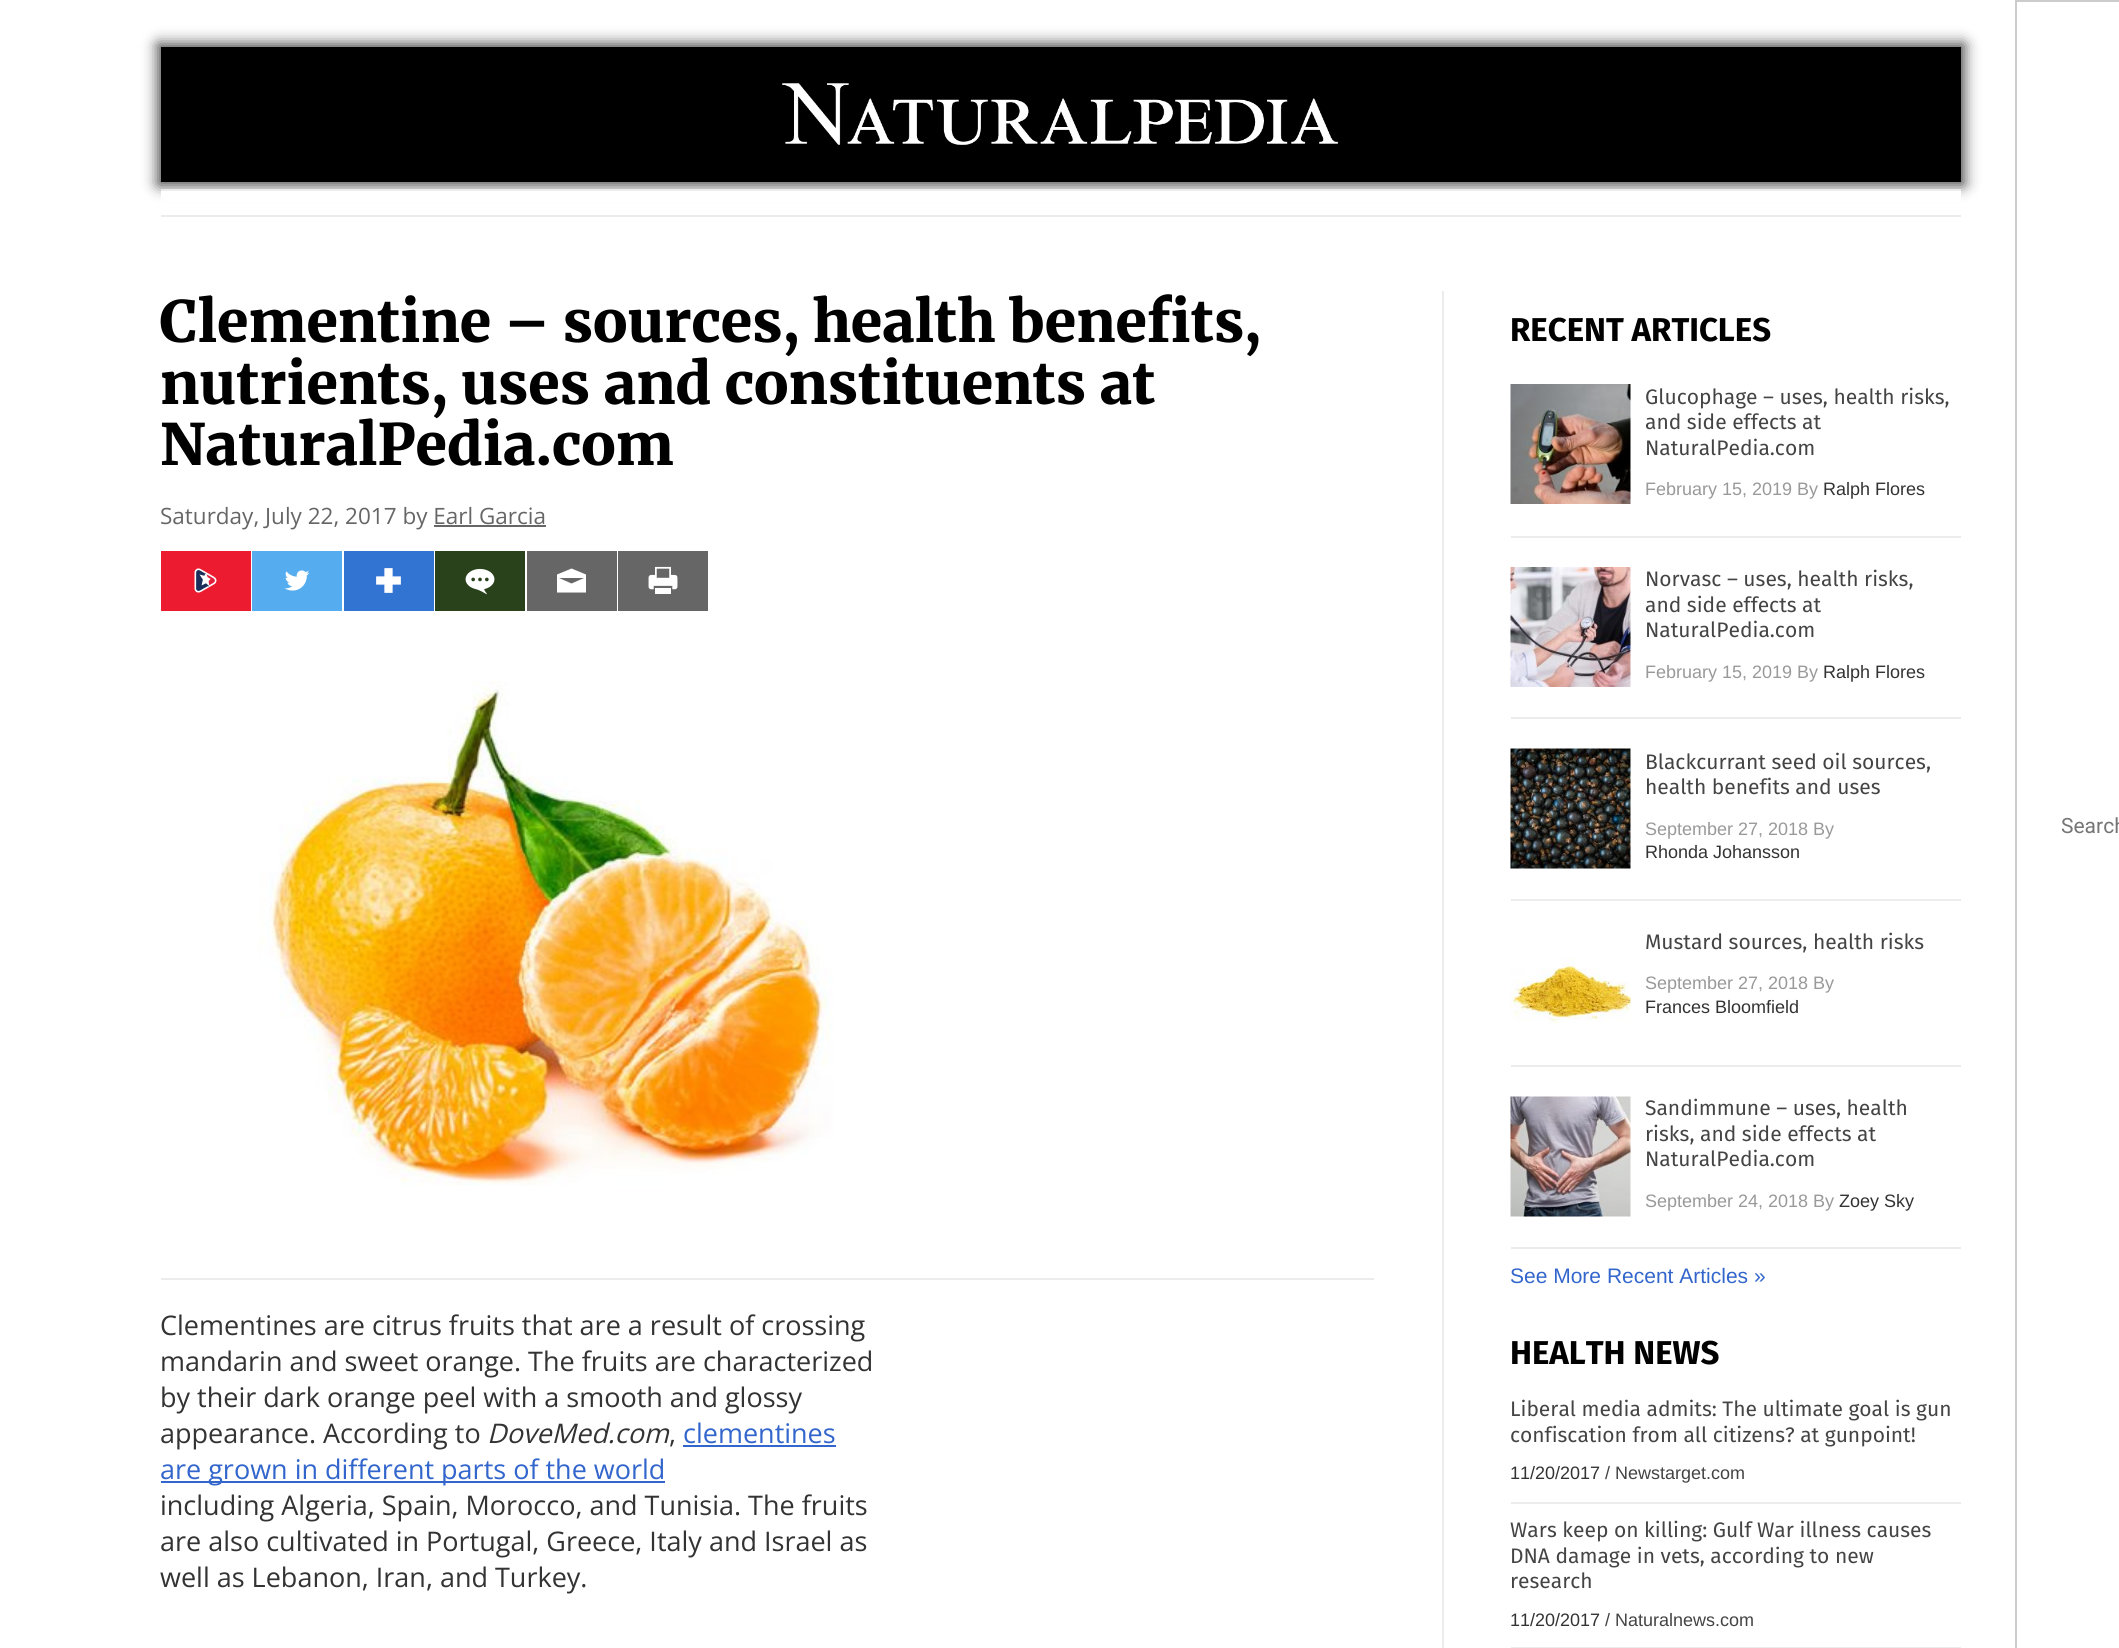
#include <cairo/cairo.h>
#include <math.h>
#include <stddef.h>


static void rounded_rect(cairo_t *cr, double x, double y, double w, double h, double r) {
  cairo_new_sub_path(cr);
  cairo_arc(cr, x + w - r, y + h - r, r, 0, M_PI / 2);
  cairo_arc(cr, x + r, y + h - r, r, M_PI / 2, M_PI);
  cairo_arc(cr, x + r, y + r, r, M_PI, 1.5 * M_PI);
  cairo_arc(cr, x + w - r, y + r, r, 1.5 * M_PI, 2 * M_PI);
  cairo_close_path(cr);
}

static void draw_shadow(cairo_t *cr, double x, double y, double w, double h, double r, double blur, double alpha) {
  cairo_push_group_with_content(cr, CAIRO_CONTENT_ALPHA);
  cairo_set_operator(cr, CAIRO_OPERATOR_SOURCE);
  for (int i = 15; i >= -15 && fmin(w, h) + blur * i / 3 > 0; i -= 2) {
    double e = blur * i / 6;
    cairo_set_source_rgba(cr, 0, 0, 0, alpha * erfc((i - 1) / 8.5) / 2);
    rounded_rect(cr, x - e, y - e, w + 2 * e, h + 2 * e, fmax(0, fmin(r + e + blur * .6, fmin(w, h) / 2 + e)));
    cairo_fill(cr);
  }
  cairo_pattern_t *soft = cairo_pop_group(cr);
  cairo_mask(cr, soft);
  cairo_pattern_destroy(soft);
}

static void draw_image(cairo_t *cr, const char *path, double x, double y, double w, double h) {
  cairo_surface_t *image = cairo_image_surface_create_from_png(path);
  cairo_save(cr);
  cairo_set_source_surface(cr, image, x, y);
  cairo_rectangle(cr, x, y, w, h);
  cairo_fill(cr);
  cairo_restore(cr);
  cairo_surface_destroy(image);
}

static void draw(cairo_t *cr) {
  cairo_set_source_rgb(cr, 1, 1, 1);
  cairo_paint(cr);
  cairo_set_source_rgb(cr, 0, 0, 0);
  draw_shadow(cr, 158, 44, 1806, 141, 0, 7.5, 0.75);
  cairo_set_source_rgb(cr, 0, 0, 0);
  cairo_rectangle(cr, 161, 47, 1800, 135);
  cairo_fill(cr);
  draw_image(cr, "images/1.png", 782, 83, 556, 62);
  cairo_set_source_rgb(cr, 236 / 255.0, 236 / 255.0, 236 / 255.0);
  cairo_rectangle(cr, 1442, 291, 2, 1357);
  cairo_fill(cr);
  cairo_set_source_rgb(cr, 102 / 255.0, 102 / 255.0, 102 / 255.0);
  cairo_rectangle(cr, 434, 525, 112, 2);
  cairo_fill(cr);
  cairo_set_source_rgb(cr, 237 / 255.0, 27 / 255.0, 47 / 255.0);
  cairo_rectangle(cr, 161, 551, 90, 60);
  cairo_fill(cr);
  draw_image(cr, "images/2.png", 194, 568, 23, 25);
  cairo_set_source_rgb(cr, 85 / 255.0, 172 / 255.0, 239 / 255.0);
  cairo_rectangle(cr, 252, 551, 90, 60);
  cairo_fill(cr);
  draw_image(cr, "images/3.png", 284, 570, 26, 21);
  cairo_set_source_rgb(cr, 50 / 255.0, 116 / 255.0, 209 / 255.0);
  cairo_rectangle(cr, 344, 551, 90, 60);
  cairo_fill(cr);
  draw_image(cr, "images/4.png", 376, 568, 25, 25);
  cairo_set_source_rgb(cr, 42 / 255.0, 66 / 255.0, 28 / 255.0);
  cairo_rectangle(cr, 435, 551, 90, 60);
  cairo_fill(cr);
  draw_image(cr, "images/5.png", 465, 568, 30, 27);
  cairo_set_source_rgb(cr, 102 / 255.0, 102 / 255.0, 102 / 255.0);
  cairo_rectangle(cr, 527, 551, 90, 60);
  cairo_fill(cr);
  cairo_set_source_rgb(cr, 1, 1, 1);
  cairo_new_path(cr);
  cairo_move_to(cr, 571.5, 568.5);
  cairo_line_to(cr, 557, 574.5);
  cairo_line_to(cr, 557, 592.5);
  cairo_line_to(cr, 586, 592.5);
  cairo_line_to(cr, 586, 574.5);
  cairo_close_path(cr);
  cairo_move_to(cr, 571.5, 583.5);
  cairo_line_to(cr, 559, 578);
  cairo_line_to(cr, 584, 578);
  cairo_close_path(cr);
  cairo_fill(cr);
  cairo_set_source_rgb(cr, 102 / 255.0, 102 / 255.0, 102 / 255.0);
  cairo_rectangle(cr, 618, 551, 90, 60);
  cairo_fill(cr);
  draw_image(cr, "images/6.png", 648, 566, 30, 28);
  cairo_set_source_rgb(cr, 236 / 255.0, 236 / 255.0, 236 / 255.0);
  cairo_rectangle(cr, 161, 1278, 1213, 2);
  cairo_fill(cr);
  draw_image(cr, "images/7.png", 259, 681, 574, 505);
  cairo_set_source_rgb(cr, 51 / 255.0, 102 / 255.0, 204 / 255.0);
  cairo_rectangle(cr, 683, 1445, 153, 2);
  cairo_fill(cr);
  cairo_rectangle(cr, 161, 1481, 504, 2);
  cairo_fill(cr);
  cairo_set_source_rgb(cr, 236 / 255.0, 236 / 255.0, 236 / 255.0);
  cairo_rectangle(cr, 1511, 536, 450, 2);
  cairo_fill(cr);
  draw_image(cr, "images/8.png", 1510, 384, 121, 120);
  cairo_rectangle(cr, 1511, 717, 450, 2);
  cairo_fill(cr);
  draw_image(cr, "images/9.png", 1510, 567, 121, 120);
  cairo_rectangle(cr, 1511, 899, 450, 2);
  cairo_fill(cr);
  draw_image(cr, "images/10.png", 1510, 748, 121, 121);
  cairo_rectangle(cr, 1511, 1065, 450, 2);
  cairo_fill(cr);
  draw_image(cr, "images/11.png", 1510, 958, 121, 67);
  cairo_rectangle(cr, 1511, 1247, 450, 2);
  cairo_fill(cr);
  draw_image(cr, "images/12.png", 1510, 1096, 121, 121);
  cairo_rectangle(cr, 1511, 1502, 450, 2);
  cairo_fill(cr);
  cairo_rectangle(cr, 1511, 1647, 450, 1);
  cairo_fill(cr);
  cairo_set_source_rgb(cr, 1, 1, 1);
  cairo_rectangle(cr, 161, 191, 1800, 11);
  cairo_fill(cr);
  cairo_set_source_rgb(cr, 236 / 255.0, 236 / 255.0, 236 / 255.0);
  cairo_rectangle(cr, 161, 189, 1800, 2);
  cairo_fill(cr);
  cairo_rectangle(cr, 161, 215, 1800, 2);
  cairo_fill(cr);
  cairo_rectangle(cr, 2016, 1, 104, 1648);
  cairo_set_source_rgb(cr, 204 / 255.0, 204 / 255.0, 204 / 255.0);
  cairo_stroke(cr);
  cairo_select_font_face(cr, "Merriweather Black", CAIRO_FONT_SLANT_NORMAL, CAIRO_FONT_WEIGHT_NORMAL);
  cairo_set_font_size(cr, 57);
  cairo_set_source_rgb(cr, 0, 0, 0);
  cairo_move_to(cr, 160, 342);
  cairo_show_text(cr, "Clementine – sources, health benefits,");
  cairo_move_to(cr, 160, 404);
  cairo_show_text(cr, "nutrients, uses and constituents at");
  cairo_move_to(cr, 160, 465);
  cairo_show_text(cr, "NaturalPedia.com");
  cairo_select_font_face(cr, "Open Sans", CAIRO_FONT_SLANT_NORMAL, CAIRO_FONT_WEIGHT_NORMAL);
  cairo_set_font_size(cr, 22.5);
  cairo_set_source_rgb(cr, 102 / 255.0, 102 / 255.0, 102 / 255.0);
  cairo_move_to(cr, 160, 524);
  cairo_show_text(cr, "Saturday, July 22, 2017 by Earl Garcia");
  cairo_set_font_size(cr, 27);
  cairo_set_source_rgb(cr, 51 / 255.0, 51 / 255.0, 51 / 255.0);
  cairo_move_to(cr, 160, 1335);
  cairo_show_text(cr, "Clementines are citrus fruits that are a result of crossing");
  cairo_move_to(cr, 160, 1371);
  cairo_show_text(cr, "mandarin and sweet orange. The fruits are characterized");
  cairo_move_to(cr, 160, 1407);
  cairo_show_text(cr, "by their dark orange peel with a smooth and glossy");
  cairo_move_to(cr, 160, 1443);
  cairo_show_text(cr, "appearance. According to");
  cairo_select_font_face(cr, "Open Sans", CAIRO_FONT_SLANT_ITALIC, CAIRO_FONT_WEIGHT_NORMAL);
  cairo_move_to(cr, 487, 1443);
  cairo_show_text(cr, "DoveMed.com");
  cairo_select_font_face(cr, "Open Sans", CAIRO_FONT_SLANT_NORMAL, CAIRO_FONT_WEIGHT_NORMAL);
  cairo_move_to(cr, 669, 1443);
  cairo_show_text(cr, ",");
  cairo_set_source_rgb(cr, 51 / 255.0, 102 / 255.0, 204 / 255.0);
  cairo_move_to(cr, 683, 1443);
  cairo_show_text(cr, "clementines");
  cairo_move_to(cr, 160, 1479);
  cairo_show_text(cr, "are grown in different parts of the world");
  cairo_set_source_rgb(cr, 51 / 255.0, 51 / 255.0, 51 / 255.0);
  cairo_move_to(cr, 160, 1515);
  cairo_show_text(cr, "including Algeria, Spain, Morocco, and Tunisia. The fruits");
  cairo_move_to(cr, 160, 1551);
  cairo_show_text(cr, "are also cultivated in Portugal, Greece, Italy and Israel as");
  cairo_move_to(cr, 160, 1587);
  cairo_show_text(cr, "well as Lebanon, Iran, and Turkey.");
  cairo_select_font_face(cr, "Fira Sans", CAIRO_FONT_SLANT_NORMAL, CAIRO_FONT_WEIGHT_BOLD);
  cairo_set_font_size(cr, 33);
  cairo_set_source_rgb(cr, 0, 0, 0);
  cairo_move_to(cr, 1510, 341);
  cairo_show_text(cr, "RECENT ARTICLES");
  cairo_select_font_face(cr, "Fira Sans", CAIRO_FONT_SLANT_NORMAL, CAIRO_FONT_WEIGHT_NORMAL);
  cairo_set_font_size(cr, 21);
  cairo_set_source_rgb(cr, 68 / 255.0, 68 / 255.0, 68 / 255.0);
  cairo_move_to(cr, 1645, 404);
  cairo_show_text(cr, "Glucophage – uses, health risks,");
  cairo_move_to(cr, 1645, 429);
  cairo_show_text(cr, "and side effects at");
  cairo_move_to(cr, 1645, 455);
  cairo_show_text(cr, "NaturalPedia.com");
  cairo_select_font_face(cr, "Liberation Sans", CAIRO_FONT_SLANT_NORMAL, CAIRO_FONT_WEIGHT_NORMAL);
  cairo_set_font_size(cr, 18);
  cairo_set_source_rgb(cr, 153 / 255.0, 153 / 255.0, 153 / 255.0);
  cairo_move_to(cr, 1645, 495);
  cairo_show_text(cr, "February 15, 2019 By");
  cairo_set_source_rgb(cr, 51 / 255.0, 51 / 255.0, 51 / 255.0);
  cairo_move_to(cr, 1823, 495);
  cairo_show_text(cr, "Ralph Flores");
  cairo_select_font_face(cr, "Fira Sans", CAIRO_FONT_SLANT_NORMAL, CAIRO_FONT_WEIGHT_NORMAL);
  cairo_set_font_size(cr, 21);
  cairo_set_source_rgb(cr, 68 / 255.0, 68 / 255.0, 68 / 255.0);
  cairo_move_to(cr, 1645, 586);
  cairo_show_text(cr, "Norvasc – uses, health risks,");
  cairo_move_to(cr, 1645, 612);
  cairo_show_text(cr, "and side effects at");
  cairo_move_to(cr, 1645, 637);
  cairo_show_text(cr, "NaturalPedia.com");
  cairo_select_font_face(cr, "Liberation Sans", CAIRO_FONT_SLANT_NORMAL, CAIRO_FONT_WEIGHT_NORMAL);
  cairo_set_font_size(cr, 18);
  cairo_set_source_rgb(cr, 153 / 255.0, 153 / 255.0, 153 / 255.0);
  cairo_move_to(cr, 1645, 678);
  cairo_show_text(cr, "February 15, 2019 By");
  cairo_set_source_rgb(cr, 51 / 255.0, 51 / 255.0, 51 / 255.0);
  cairo_move_to(cr, 1823, 678);
  cairo_show_text(cr, "Ralph Flores");
  cairo_select_font_face(cr, "Fira Sans", CAIRO_FONT_SLANT_NORMAL, CAIRO_FONT_WEIGHT_NORMAL);
  cairo_set_font_size(cr, 21);
  cairo_set_source_rgb(cr, 68 / 255.0, 68 / 255.0, 68 / 255.0);
  cairo_move_to(cr, 1645, 769);
  cairo_show_text(cr, "Blackcurrant seed oil sources,");
  cairo_move_to(cr, 1645, 794);
  cairo_show_text(cr, "health benefits and uses");
  cairo_select_font_face(cr, "Liberation Sans", CAIRO_FONT_SLANT_NORMAL, CAIRO_FONT_WEIGHT_NORMAL);
  cairo_set_font_size(cr, 18);
  cairo_set_source_rgb(cr, 153 / 255.0, 153 / 255.0, 153 / 255.0);
  cairo_move_to(cr, 1645, 835);
  cairo_show_text(cr, "September 27, 2018 By");
  cairo_set_source_rgb(cr, 51 / 255.0, 51 / 255.0, 51 / 255.0);
  cairo_move_to(cr, 1645, 858);
  cairo_show_text(cr, "Rhonda Johansson");
  cairo_select_font_face(cr, "Fira Sans", CAIRO_FONT_SLANT_NORMAL, CAIRO_FONT_WEIGHT_NORMAL);
  cairo_set_font_size(cr, 21);
  cairo_set_source_rgb(cr, 68 / 255.0, 68 / 255.0, 68 / 255.0);
  cairo_move_to(cr, 1645, 949);
  cairo_show_text(cr, "Mustard sources, health risks");
  cairo_select_font_face(cr, "Liberation Sans", CAIRO_FONT_SLANT_NORMAL, CAIRO_FONT_WEIGHT_NORMAL);
  cairo_set_font_size(cr, 18);
  cairo_set_source_rgb(cr, 153 / 255.0, 153 / 255.0, 153 / 255.0);
  cairo_move_to(cr, 1645, 989);
  cairo_show_text(cr, "September 27, 2018 By");
  cairo_set_source_rgb(cr, 51 / 255.0, 51 / 255.0, 51 / 255.0);
  cairo_move_to(cr, 1645, 1013);
  cairo_show_text(cr, "Frances Bloomfield");
  cairo_select_font_face(cr, "Fira Sans", CAIRO_FONT_SLANT_NORMAL, CAIRO_FONT_WEIGHT_NORMAL);
  cairo_set_font_size(cr, 21);
  cairo_set_source_rgb(cr, 68 / 255.0, 68 / 255.0, 68 / 255.0);
  cairo_move_to(cr, 1645, 1115);
  cairo_show_text(cr, "Sandimmune – uses, health");
  cairo_move_to(cr, 1645, 1141);
  cairo_show_text(cr, "risks, and side effects at");
  cairo_move_to(cr, 1645, 1166);
  cairo_show_text(cr, "NaturalPedia.com");
  cairo_select_font_face(cr, "Liberation Sans", CAIRO_FONT_SLANT_NORMAL, CAIRO_FONT_WEIGHT_NORMAL);
  cairo_set_font_size(cr, 18);
  cairo_set_source_rgb(cr, 153 / 255.0, 153 / 255.0, 153 / 255.0);
  cairo_move_to(cr, 1645, 1207);
  cairo_show_text(cr, "September 24, 2018 By");
  cairo_set_source_rgb(cr, 51 / 255.0, 51 / 255.0, 51 / 255.0);
  cairo_move_to(cr, 1839, 1207);
  cairo_show_text(cr, "Zoey Sky");
  cairo_set_font_size(cr, 21);
  cairo_set_source_rgb(cr, 51 / 255.0, 102 / 255.0, 204 / 255.0);
  cairo_move_to(cr, 1510, 1283);
  cairo_show_text(cr, "See More Recent Articles »");
  cairo_select_font_face(cr, "Fira Sans", CAIRO_FONT_SLANT_NORMAL, CAIRO_FONT_WEIGHT_BOLD);
  cairo_set_font_size(cr, 33);
  cairo_set_source_rgb(cr, 0, 0, 0);
  cairo_move_to(cr, 1510, 1364);
  cairo_show_text(cr, "HEALTH NEWS");
  cairo_select_font_face(cr, "Fira Sans", CAIRO_FONT_SLANT_NORMAL, CAIRO_FONT_WEIGHT_NORMAL);
  cairo_set_font_size(cr, 21);
  cairo_set_source_rgb(cr, 68 / 255.0, 68 / 255.0, 68 / 255.0);
  cairo_move_to(cr, 1510, 1416);
  cairo_show_text(cr, "Liberal media admits: The ultimate goal is gun");
  cairo_move_to(cr, 1510, 1442);
  cairo_show_text(cr, "confiscation from all citizens? at gunpoint!");
  cairo_select_font_face(cr, "Liberation Sans", CAIRO_FONT_SLANT_NORMAL, CAIRO_FONT_WEIGHT_NORMAL);
  cairo_set_font_size(cr, 18);
  cairo_set_source_rgb(cr, 51 / 255.0, 51 / 255.0, 51 / 255.0);
  cairo_move_to(cr, 1510, 1479);
  cairo_show_text(cr, "11/20/2017");
  cairo_set_source_rgb(cr, 68 / 255.0, 68 / 255.0, 68 / 255.0);
  cairo_move_to(cr, 1605, 1479);
  cairo_show_text(cr, "/ Newstarget.com");
  cairo_select_font_face(cr, "Fira Sans", CAIRO_FONT_SLANT_NORMAL, CAIRO_FONT_WEIGHT_NORMAL);
  cairo_set_font_size(cr, 21);
  cairo_move_to(cr, 1510, 1537);
  cairo_show_text(cr, "Wars keep on killing: Gulf War illness causes");
  cairo_move_to(cr, 1510, 1563);
  cairo_show_text(cr, "DNA damage in vets, according to new");
  cairo_move_to(cr, 1510, 1588);
  cairo_show_text(cr, "research");
  cairo_select_font_face(cr, "Liberation Sans", CAIRO_FONT_SLANT_NORMAL, CAIRO_FONT_WEIGHT_NORMAL);
  cairo_set_font_size(cr, 18);
  cairo_set_source_rgb(cr, 51 / 255.0, 51 / 255.0, 51 / 255.0);
  cairo_move_to(cr, 1510, 1626);
  cairo_show_text(cr, "11/20/2017");
  cairo_set_source_rgb(cr, 68 / 255.0, 68 / 255.0, 68 / 255.0);
  cairo_move_to(cr, 1605, 1626);
  cairo_show_text(cr, "/ Naturalnews.com");
  cairo_select_font_face(cr, "Roboto", CAIRO_FONT_SLANT_NORMAL, CAIRO_FONT_WEIGHT_NORMAL);
  cairo_set_font_size(cr, 21);
  cairo_set_source_rgb(cr, 117 / 255.0, 117 / 255.0, 117 / 255.0);
  cairo_move_to(cr, 2061, 833);
  cairo_show_text(cr, "Search");
}

int main(void) {
  cairo_surface_t *surface = cairo_image_surface_create(CAIRO_FORMAT_RGB24, 2119, 1648);
  cairo_t *cr = cairo_create(surface);
  cairo_font_options_t *options = cairo_font_options_create();
  cairo_font_options_set_hint_metrics(options, CAIRO_HINT_METRICS_OFF);
  cairo_font_options_set_hint_style(options, CAIRO_HINT_STYLE_NONE);
  cairo_set_font_options(cr, options);
  cairo_set_miter_limit(cr, 4);
  draw(cr);
  cairo_surface_write_to_png(surface, "out.png");
  cairo_font_options_destroy(options);
  cairo_destroy(cr);
  cairo_surface_destroy(surface);
  return 0;
}
